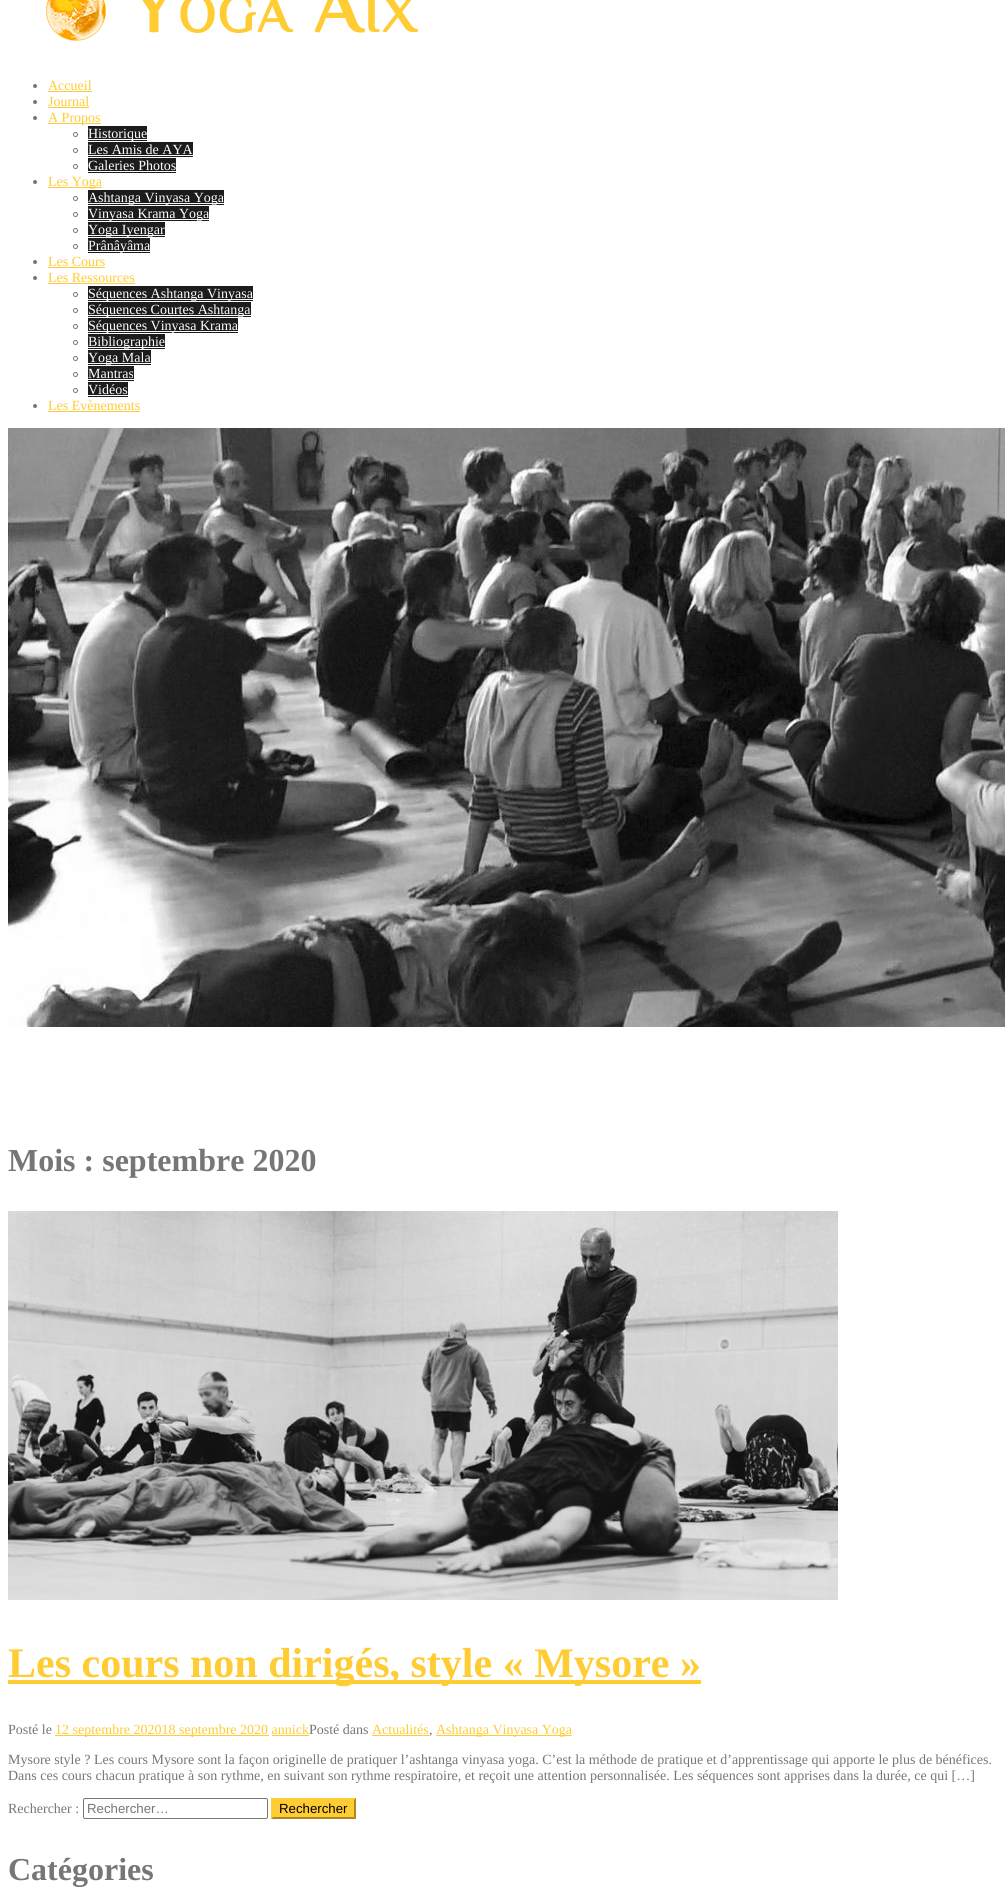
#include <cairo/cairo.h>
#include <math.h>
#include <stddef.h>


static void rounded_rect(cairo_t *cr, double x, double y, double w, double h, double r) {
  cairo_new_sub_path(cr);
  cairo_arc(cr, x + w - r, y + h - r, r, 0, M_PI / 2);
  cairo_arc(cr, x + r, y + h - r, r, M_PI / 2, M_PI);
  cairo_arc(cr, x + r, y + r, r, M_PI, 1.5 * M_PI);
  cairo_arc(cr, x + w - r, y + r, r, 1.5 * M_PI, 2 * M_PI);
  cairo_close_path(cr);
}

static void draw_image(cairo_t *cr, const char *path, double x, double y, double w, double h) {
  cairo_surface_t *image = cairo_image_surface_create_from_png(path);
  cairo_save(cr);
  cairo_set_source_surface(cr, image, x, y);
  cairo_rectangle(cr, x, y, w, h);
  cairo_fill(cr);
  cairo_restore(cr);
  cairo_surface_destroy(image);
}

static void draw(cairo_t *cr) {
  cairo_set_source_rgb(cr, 1, 1, 1);
  cairo_paint(cr);
  draw_image(cr, "images/1.png", 45, 0, 373, 41);
  cairo_set_source_rgb(cr, 118 / 255.0, 118 / 255.0, 118 / 255.0);
  cairo_arc(cr, 35, 86, 2, 0, 2 * M_PI);
  cairo_fill(cr);
  cairo_set_source_rgb(cr, 1, 204 / 255.0, 51 / 255.0);
  cairo_rectangle(cr, 48, 91, 44, 1);
  cairo_fill(cr);
  cairo_set_source_rgb(cr, 118 / 255.0, 118 / 255.0, 118 / 255.0);
  cairo_arc(cr, 35, 102, 2, 0, 2 * M_PI);
  cairo_fill(cr);
  cairo_set_source_rgb(cr, 1, 204 / 255.0, 51 / 255.0);
  cairo_rectangle(cr, 48, 107, 41, 1);
  cairo_fill(cr);
  cairo_set_source_rgb(cr, 118 / 255.0, 118 / 255.0, 118 / 255.0);
  cairo_arc(cr, 35, 118, 2, 0, 2 * M_PI);
  cairo_fill(cr);
  cairo_set_source_rgb(cr, 1, 204 / 255.0, 51 / 255.0);
  cairo_rectangle(cr, 48, 123, 53, 1);
  cairo_fill(cr);
  cairo_arc(cr, 75.5, 134.5, 2, 0, 2 * M_PI);
  cairo_set_source_rgb(cr, 118 / 255.0, 118 / 255.0, 118 / 255.0);
  cairo_set_line_width(cr, 1);
  cairo_stroke(cr);
  cairo_set_source_rgb(cr, 28 / 255.0, 28 / 255.0, 28 / 255.0);
  cairo_rectangle(cr, 88, 126, 59, 15);
  cairo_fill(cr);
  cairo_set_source_rgb(cr, 1, 1, 1);
  cairo_rectangle(cr, 88, 139, 59, 1);
  cairo_fill(cr);
  cairo_arc(cr, 75.5, 150.5, 2, 0, 2 * M_PI);
  cairo_set_source_rgb(cr, 118 / 255.0, 118 / 255.0, 118 / 255.0);
  cairo_stroke(cr);
  cairo_set_source_rgb(cr, 28 / 255.0, 28 / 255.0, 28 / 255.0);
  cairo_rectangle(cr, 88, 142, 105, 15);
  cairo_fill(cr);
  cairo_set_source_rgb(cr, 1, 1, 1);
  cairo_rectangle(cr, 88, 155, 105, 1);
  cairo_fill(cr);
  cairo_arc(cr, 75.5, 166.5, 2, 0, 2 * M_PI);
  cairo_set_source_rgb(cr, 118 / 255.0, 118 / 255.0, 118 / 255.0);
  cairo_stroke(cr);
  cairo_set_source_rgb(cr, 28 / 255.0, 28 / 255.0, 28 / 255.0);
  cairo_rectangle(cr, 88, 158, 88, 15);
  cairo_fill(cr);
  cairo_set_source_rgb(cr, 1, 1, 1);
  cairo_rectangle(cr, 88, 171, 88, 1);
  cairo_fill(cr);
  cairo_set_source_rgb(cr, 118 / 255.0, 118 / 255.0, 118 / 255.0);
  cairo_arc(cr, 35, 182, 2, 0, 2 * M_PI);
  cairo_fill(cr);
  cairo_set_source_rgb(cr, 1, 204 / 255.0, 51 / 255.0);
  cairo_rectangle(cr, 48, 187, 54, 1);
  cairo_fill(cr);
  cairo_arc(cr, 75.5, 198.5, 2, 0, 2 * M_PI);
  cairo_set_source_rgb(cr, 118 / 255.0, 118 / 255.0, 118 / 255.0);
  cairo_stroke(cr);
  cairo_set_source_rgb(cr, 28 / 255.0, 28 / 255.0, 28 / 255.0);
  cairo_rectangle(cr, 88, 190, 136, 15);
  cairo_fill(cr);
  cairo_set_source_rgb(cr, 1, 1, 1);
  cairo_rectangle(cr, 88, 203, 136, 1);
  cairo_fill(cr);
  cairo_arc(cr, 75.5, 214.5, 2, 0, 2 * M_PI);
  cairo_set_source_rgb(cr, 118 / 255.0, 118 / 255.0, 118 / 255.0);
  cairo_stroke(cr);
  cairo_set_source_rgb(cr, 28 / 255.0, 28 / 255.0, 28 / 255.0);
  cairo_rectangle(cr, 88, 206, 121, 15);
  cairo_fill(cr);
  cairo_set_source_rgb(cr, 1, 1, 1);
  cairo_rectangle(cr, 88, 219, 121, 1);
  cairo_fill(cr);
  cairo_arc(cr, 75.5, 230.5, 2, 0, 2 * M_PI);
  cairo_set_source_rgb(cr, 118 / 255.0, 118 / 255.0, 118 / 255.0);
  cairo_stroke(cr);
  cairo_set_source_rgb(cr, 28 / 255.0, 28 / 255.0, 28 / 255.0);
  cairo_rectangle(cr, 88, 222, 77, 15);
  cairo_fill(cr);
  cairo_set_source_rgb(cr, 1, 1, 1);
  cairo_rectangle(cr, 88, 235, 77, 1);
  cairo_fill(cr);
  cairo_arc(cr, 75.5, 246.5, 2, 0, 2 * M_PI);
  cairo_set_source_rgb(cr, 118 / 255.0, 118 / 255.0, 118 / 255.0);
  cairo_stroke(cr);
  cairo_set_source_rgb(cr, 28 / 255.0, 28 / 255.0, 28 / 255.0);
  cairo_rectangle(cr, 88, 238, 62, 15);
  cairo_fill(cr);
  cairo_set_source_rgb(cr, 1, 1, 1);
  cairo_rectangle(cr, 88, 251, 62, 1);
  cairo_fill(cr);
  cairo_set_source_rgb(cr, 118 / 255.0, 118 / 255.0, 118 / 255.0);
  cairo_arc(cr, 35, 262, 2, 0, 2 * M_PI);
  cairo_fill(cr);
  cairo_set_source_rgb(cr, 1, 204 / 255.0, 51 / 255.0);
  cairo_rectangle(cr, 48, 267, 57, 1);
  cairo_fill(cr);
  cairo_set_source_rgb(cr, 118 / 255.0, 118 / 255.0, 118 / 255.0);
  cairo_arc(cr, 35, 278, 2, 0, 2 * M_PI);
  cairo_fill(cr);
  cairo_set_source_rgb(cr, 1, 204 / 255.0, 51 / 255.0);
  cairo_rectangle(cr, 48, 283, 87, 1);
  cairo_fill(cr);
  cairo_arc(cr, 75.5, 294.5, 2, 0, 2 * M_PI);
  cairo_set_source_rgb(cr, 118 / 255.0, 118 / 255.0, 118 / 255.0);
  cairo_stroke(cr);
  cairo_set_source_rgb(cr, 28 / 255.0, 28 / 255.0, 28 / 255.0);
  cairo_rectangle(cr, 88, 286, 165, 15);
  cairo_fill(cr);
  cairo_set_source_rgb(cr, 1, 1, 1);
  cairo_rectangle(cr, 88, 299, 165, 1);
  cairo_fill(cr);
  cairo_arc(cr, 75.5, 310.5, 2, 0, 2 * M_PI);
  cairo_set_source_rgb(cr, 118 / 255.0, 118 / 255.0, 118 / 255.0);
  cairo_stroke(cr);
  cairo_set_source_rgb(cr, 28 / 255.0, 28 / 255.0, 28 / 255.0);
  cairo_rectangle(cr, 88, 302, 163, 15);
  cairo_fill(cr);
  cairo_set_source_rgb(cr, 1, 1, 1);
  cairo_rectangle(cr, 88, 315, 163, 1);
  cairo_fill(cr);
  cairo_arc(cr, 75.5, 326.5, 2, 0, 2 * M_PI);
  cairo_set_source_rgb(cr, 118 / 255.0, 118 / 255.0, 118 / 255.0);
  cairo_stroke(cr);
  cairo_set_source_rgb(cr, 28 / 255.0, 28 / 255.0, 28 / 255.0);
  cairo_rectangle(cr, 88, 318, 150, 15);
  cairo_fill(cr);
  cairo_set_source_rgb(cr, 1, 1, 1);
  cairo_rectangle(cr, 88, 331, 150, 1);
  cairo_fill(cr);
  cairo_arc(cr, 75.5, 342.5, 2, 0, 2 * M_PI);
  cairo_set_source_rgb(cr, 118 / 255.0, 118 / 255.0, 118 / 255.0);
  cairo_stroke(cr);
  cairo_set_source_rgb(cr, 28 / 255.0, 28 / 255.0, 28 / 255.0);
  cairo_rectangle(cr, 88, 334, 77, 15);
  cairo_fill(cr);
  cairo_set_source_rgb(cr, 1, 1, 1);
  cairo_rectangle(cr, 88, 347, 77, 1);
  cairo_fill(cr);
  cairo_arc(cr, 75.5, 358.5, 2, 0, 2 * M_PI);
  cairo_set_source_rgb(cr, 118 / 255.0, 118 / 255.0, 118 / 255.0);
  cairo_stroke(cr);
  cairo_set_source_rgb(cr, 28 / 255.0, 28 / 255.0, 28 / 255.0);
  cairo_rectangle(cr, 88, 350, 63, 15);
  cairo_fill(cr);
  cairo_set_source_rgb(cr, 1, 1, 1);
  cairo_rectangle(cr, 88, 363, 63, 1);
  cairo_fill(cr);
  cairo_arc(cr, 75.5, 374.5, 2, 0, 2 * M_PI);
  cairo_set_source_rgb(cr, 118 / 255.0, 118 / 255.0, 118 / 255.0);
  cairo_stroke(cr);
  cairo_set_source_rgb(cr, 28 / 255.0, 28 / 255.0, 28 / 255.0);
  cairo_rectangle(cr, 88, 366, 46, 15);
  cairo_fill(cr);
  cairo_set_source_rgb(cr, 1, 1, 1);
  cairo_rectangle(cr, 88, 379, 46, 1);
  cairo_fill(cr);
  cairo_arc(cr, 75.5, 390.5, 2, 0, 2 * M_PI);
  cairo_set_source_rgb(cr, 118 / 255.0, 118 / 255.0, 118 / 255.0);
  cairo_stroke(cr);
  cairo_set_source_rgb(cr, 28 / 255.0, 28 / 255.0, 28 / 255.0);
  cairo_rectangle(cr, 88, 382, 40, 15);
  cairo_fill(cr);
  cairo_set_source_rgb(cr, 1, 1, 1);
  cairo_rectangle(cr, 88, 395, 40, 1);
  cairo_fill(cr);
  cairo_set_source_rgb(cr, 118 / 255.0, 118 / 255.0, 118 / 255.0);
  cairo_arc(cr, 35, 406, 2, 0, 2 * M_PI);
  cairo_fill(cr);
  cairo_set_source_rgb(cr, 1, 204 / 255.0, 51 / 255.0);
  cairo_rectangle(cr, 48, 411, 92, 1);
  cairo_fill(cr);
  draw_image(cr, "images/2.png", 8, 428, 997, 599);
  draw_image(cr, "images/3.png", 8, 1211, 830, 389);
  cairo_rectangle(cr, 8, 1680, 693, 4);
  cairo_fill(cr);
  cairo_rectangle(cr, 55, 1735, 214, 1);
  cairo_fill(cr);
  cairo_rectangle(cr, 372, 1735, 57, 1);
  cairo_fill(cr);
  cairo_rectangle(cr, 436, 1735, 136, 1);
  cairo_fill(cr);
  cairo_rectangle(cr, 272, 1735, 37, 1);
  cairo_fill(cr);
  rounded_rect(cr, 83.5, 1798.5, 184, 20, 1.5);
  cairo_set_source_rgb(cr, 118 / 255.0, 118 / 255.0, 118 / 255.0);
  cairo_stroke(cr);
  cairo_set_source_rgb(cr, 1, 204 / 255.0, 51 / 255.0);
  cairo_rectangle(cr, 271, 1798, 85, 21);
  cairo_fill(cr);
  cairo_set_source_rgb(cr, 170 / 255.0, 136 / 255.0, 34 / 255.0);
  cairo_new_path(cr);
  cairo_move_to(cr, 356, 1798);
  cairo_line_to(cr, 356, 1819);
  cairo_line_to(cr, 354, 1817);
  cairo_line_to(cr, 354, 1800);
  cairo_close_path(cr);
  cairo_fill(cr);
  cairo_new_path(cr);
  cairo_move_to(cr, 356, 1819);
  cairo_line_to(cr, 271, 1819);
  cairo_line_to(cr, 273, 1817);
  cairo_line_to(cr, 354, 1817);
  cairo_close_path(cr);
  cairo_fill(cr);
  cairo_set_source_rgb(cr, 1, 204 / 255.0, 51 / 255.0);
  cairo_new_path(cr);
  cairo_move_to(cr, 271, 1819);
  cairo_line_to(cr, 271, 1798);
  cairo_line_to(cr, 273, 1800);
  cairo_line_to(cr, 273, 1817);
  cairo_close_path(cr);
  cairo_fill(cr);
  cairo_select_font_face(cr, "Liberation Serif", CAIRO_FONT_SLANT_NORMAL, CAIRO_FONT_WEIGHT_NORMAL);
  cairo_set_font_size(cr, 14);
  cairo_move_to(cr, 48, 90);
  cairo_show_text(cr, "Accueil");
  cairo_move_to(cr, 48, 106);
  cairo_show_text(cr, "Journal");
  cairo_move_to(cr, 48, 122);
  cairo_show_text(cr, "A Propos");
  cairo_set_source_rgb(cr, 1, 1, 1);
  cairo_move_to(cr, 88, 138);
  cairo_show_text(cr, "Historique");
  cairo_move_to(cr, 88, 154);
  cairo_show_text(cr, "Les Amis de AYA");
  cairo_move_to(cr, 88, 170);
  cairo_show_text(cr, "Galeries Photos");
  cairo_set_source_rgb(cr, 1, 204 / 255.0, 51 / 255.0);
  cairo_move_to(cr, 48, 186);
  cairo_show_text(cr, "Les Yoga");
  cairo_set_source_rgb(cr, 1, 1, 1);
  cairo_move_to(cr, 88, 202);
  cairo_show_text(cr, "Ashtanga Vinyasa Yoga");
  cairo_move_to(cr, 88, 218);
  cairo_show_text(cr, "Vinyasa Krama Yoga");
  cairo_move_to(cr, 88, 234);
  cairo_show_text(cr, "Yoga Iyengar");
  cairo_move_to(cr, 88, 250);
  cairo_show_text(cr, "Prânâyâma");
  cairo_set_source_rgb(cr, 1, 204 / 255.0, 51 / 255.0);
  cairo_move_to(cr, 48, 266);
  cairo_show_text(cr, "Les Cours");
  cairo_move_to(cr, 48, 282);
  cairo_show_text(cr, "Les Ressources");
  cairo_set_source_rgb(cr, 1, 1, 1);
  cairo_move_to(cr, 88, 298);
  cairo_show_text(cr, "Séquences Ashtanga Vinyasa");
  cairo_move_to(cr, 88, 314);
  cairo_show_text(cr, "Séquences Courtes Ashtanga");
  cairo_move_to(cr, 88, 330);
  cairo_show_text(cr, "Séquences Vinyasa Krama");
  cairo_move_to(cr, 88, 346);
  cairo_show_text(cr, "Bibliographie");
  cairo_move_to(cr, 88, 362);
  cairo_show_text(cr, "Yoga Mala");
  cairo_move_to(cr, 88, 378);
  cairo_show_text(cr, "Mantras");
  cairo_move_to(cr, 88, 394);
  cairo_show_text(cr, "Vidéos");
  cairo_set_source_rgb(cr, 1, 204 / 255.0, 51 / 255.0);
  cairo_move_to(cr, 48, 410);
  cairo_show_text(cr, "Les Evènements");
  cairo_select_font_face(cr, "Liberation Serif", CAIRO_FONT_SLANT_NORMAL, CAIRO_FONT_WEIGHT_BOLD);
  cairo_set_font_size(cr, 32);
  cairo_set_source_rgb(cr, 118 / 255.0, 118 / 255.0, 118 / 255.0);
  cairo_move_to(cr, 8, 1171);
  cairo_show_text(cr, "Mois : septembre 2020");
  cairo_set_font_size(cr, 42);
  cairo_set_source_rgb(cr, 1, 204 / 255.0, 51 / 255.0);
  cairo_move_to(cr, 8, 1677);
  cairo_show_text(cr, "Les cours non dirigés, style « Mysore »");
  cairo_select_font_face(cr, "Liberation Serif", CAIRO_FONT_SLANT_NORMAL, CAIRO_FONT_WEIGHT_NORMAL);
  cairo_set_font_size(cr, 14);
  cairo_set_source_rgb(cr, 118 / 255.0, 118 / 255.0, 118 / 255.0);
  cairo_move_to(cr, 8, 1734);
  cairo_show_text(cr, "Posté le");
  cairo_set_source_rgb(cr, 1, 204 / 255.0, 51 / 255.0);
  cairo_move_to(cr, 55, 1734);
  cairo_show_text(cr, "12 septembre 202018 septembre 2020 annick");
  cairo_set_source_rgb(cr, 118 / 255.0, 118 / 255.0, 118 / 255.0);
  cairo_move_to(cr, 309, 1734);
  cairo_show_text(cr, "Posté dans");
  cairo_set_source_rgb(cr, 1, 204 / 255.0, 51 / 255.0);
  cairo_move_to(cr, 372, 1734);
  cairo_show_text(cr, "Actualités");
  cairo_set_source_rgb(cr, 118 / 255.0, 118 / 255.0, 118 / 255.0);
  cairo_move_to(cr, 429, 1734);
  cairo_show_text(cr, ",");
  cairo_set_source_rgb(cr, 1, 204 / 255.0, 51 / 255.0);
  cairo_move_to(cr, 436, 1734);
  cairo_show_text(cr, "Ashtanga Vinyasa Yoga");
  cairo_set_source_rgb(cr, 118 / 255.0, 118 / 255.0, 118 / 255.0);
  cairo_move_to(cr, 8, 1764);
  cairo_show_text(cr, "Mysore style ? Les cours Mysore sont la façon originelle de pratiquer l’ashtanga vinyasa yoga. C’est la méthode de pratique et d’apprentissage qui apporte le plus de bénéfices.");
  cairo_move_to(cr, 8, 1780);
  cairo_show_text(cr, "Dans ces cours chacun pratique à son rythme, en suivant son rythme respiratoire, et reçoit une attention personnalisée. Les séquences sont apprises dans la durée, ce qui […]");
  cairo_move_to(cr, 8, 1813);
  cairo_show_text(cr, "Rechercher :");
  cairo_select_font_face(cr, "Liberation Sans", CAIRO_FONT_SLANT_NORMAL, CAIRO_FONT_WEIGHT_NORMAL);
  cairo_set_font_size(cr, 13.25);
  cairo_move_to(cr, 87, 1813);
  cairo_show_text(cr, "Rechercher…");
  cairo_set_source_rgb(cr, 0, 0, 0);
  cairo_move_to(cr, 279, 1813);
  cairo_show_text(cr, "Rechercher");
  cairo_select_font_face(cr, "Liberation Serif", CAIRO_FONT_SLANT_NORMAL, CAIRO_FONT_WEIGHT_BOLD);
  cairo_set_font_size(cr, 32);
  cairo_set_source_rgb(cr, 118 / 255.0, 118 / 255.0, 118 / 255.0);
  cairo_move_to(cr, 8, 1880);
  cairo_show_text(cr, "Catégories");
}

int main(void) {
  cairo_surface_t *surface = cairo_image_surface_create(CAIRO_FORMAT_RGB24, 1005, 1887);
  cairo_t *cr = cairo_create(surface);
  cairo_font_options_t *options = cairo_font_options_create();
  cairo_font_options_set_hint_metrics(options, CAIRO_HINT_METRICS_OFF);
  cairo_font_options_set_hint_style(options, CAIRO_HINT_STYLE_NONE);
  cairo_set_font_options(cr, options);
  cairo_set_miter_limit(cr, 4);
  draw(cr);
  cairo_surface_write_to_png(surface, "out.png");
  cairo_font_options_destroy(options);
  cairo_destroy(cr);
  cairo_surface_destroy(surface);
  return 0;
}
